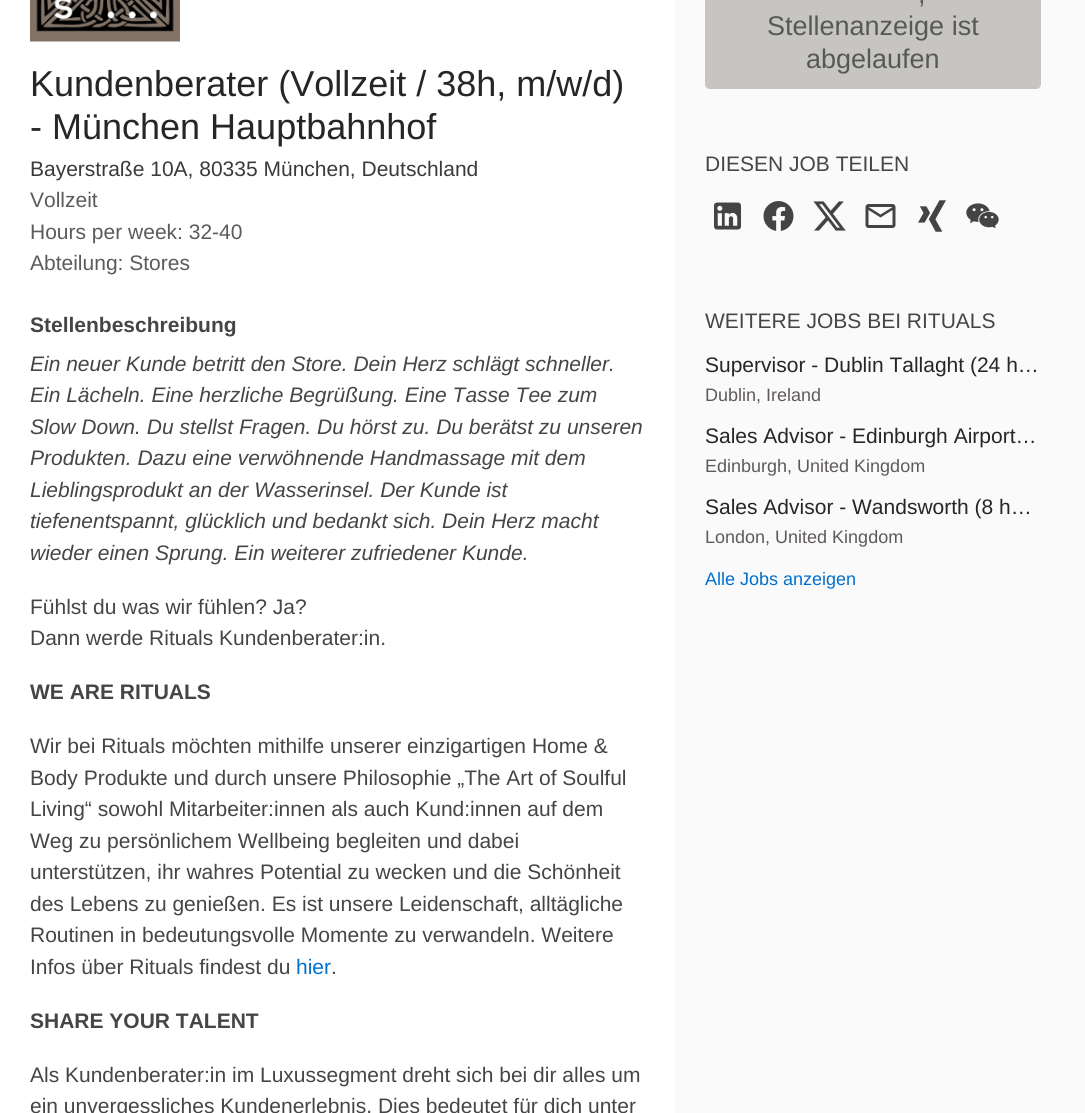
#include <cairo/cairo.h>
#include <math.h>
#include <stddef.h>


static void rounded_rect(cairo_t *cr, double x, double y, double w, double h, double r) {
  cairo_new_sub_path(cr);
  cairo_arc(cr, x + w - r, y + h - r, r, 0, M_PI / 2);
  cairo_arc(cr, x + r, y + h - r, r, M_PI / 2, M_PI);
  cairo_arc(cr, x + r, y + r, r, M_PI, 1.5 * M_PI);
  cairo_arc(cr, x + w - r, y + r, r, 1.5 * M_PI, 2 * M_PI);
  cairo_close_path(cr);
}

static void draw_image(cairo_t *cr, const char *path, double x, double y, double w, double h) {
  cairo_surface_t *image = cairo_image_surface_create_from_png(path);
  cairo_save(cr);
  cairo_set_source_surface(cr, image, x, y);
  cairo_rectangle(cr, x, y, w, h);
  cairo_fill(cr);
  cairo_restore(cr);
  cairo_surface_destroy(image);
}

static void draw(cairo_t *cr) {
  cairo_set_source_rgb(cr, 1, 1, 1);
  cairo_paint(cr);
  draw_image(cr, "images/1.png", 30, 0, 150, 42);
  cairo_set_source_rgb(cr, 250 / 255.0, 250 / 255.0, 250 / 255.0);
  cairo_rectangle(cr, 675, 0, 410, 1113);
  cairo_fill(cr);
  cairo_set_source_rgb(cr, 199 / 255.0, 197 / 255.0, 194 / 255.0);
  rounded_rect(cr, 705, -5, 336, 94, 5);
  cairo_fill(cr);
  draw_image(cr, "images/2.png", 714, 202, 27, 28);
  draw_image(cr, "images/3.png", 763, 201, 31, 30);
  draw_image(cr, "images/4.png", 813, 201, 33, 30);
  draw_image(cr, "images/5.png", 865, 204, 31, 24);
  draw_image(cr, "images/6.png", 918, 200, 28, 32);
  draw_image(cr, "images/7.png", 966, 203, 33, 26);
  cairo_select_font_face(cr, "Liberation Sans", CAIRO_FONT_SLANT_NORMAL, CAIRO_FONT_WEIGHT_NORMAL);
  cairo_set_font_size(cr, 36);
  cairo_set_source_rgb(cr, 39 / 255.0, 37 / 255.0, 37 / 255.0);
  cairo_move_to(cr, 30, 96);
  cairo_show_text(cr, "Kundenberater (Vollzeit / 38h, m/w/d)");
  cairo_move_to(cr, 30, 139);
  cairo_show_text(cr, "- München Hauptbahnhof");
  cairo_set_font_size(cr, 21);
  cairo_set_source_rgb(cr, 56 / 255.0, 60 / 255.0, 56 / 255.0);
  cairo_move_to(cr, 30, 176);
  cairo_show_text(cr, "Bayerstraße 10A, 80335 München, Deutschland");
  cairo_set_source_rgb(cr, 94 / 255.0, 89 / 255.0, 94 / 255.0);
  cairo_move_to(cr, 30, 207);
  cairo_show_text(cr, "Vollzeit");
  cairo_move_to(cr, 30, 239);
  cairo_show_text(cr, "Hours per week: 32-40");
  cairo_move_to(cr, 30, 270);
  cairo_show_text(cr, "Abteilung: Stores");
  cairo_select_font_face(cr, "Liberation Sans", CAIRO_FONT_SLANT_NORMAL, CAIRO_FONT_WEIGHT_BOLD);
  cairo_set_source_rgb(cr, 68 / 255.0, 69 / 255.0, 69 / 255.0);
  cairo_move_to(cr, 30, 332);
  cairo_show_text(cr, "Stellenbeschreibung");
  cairo_select_font_face(cr, "Liberation Sans", CAIRO_FONT_SLANT_ITALIC, CAIRO_FONT_WEIGHT_NORMAL);
  cairo_move_to(cr, 30, 371);
  cairo_show_text(cr, "Ein neuer Kunde betritt den Store. Dein Herz schlägt schneller.");
  cairo_move_to(cr, 30, 402);
  cairo_show_text(cr, "Ein Lächeln. Eine herzliche Begrüßung. Eine Tasse Tee zum");
  cairo_move_to(cr, 30, 434);
  cairo_show_text(cr, "Slow Down. Du stellst Fragen. Du hörst zu. Du berätst zu unseren");
  cairo_move_to(cr, 30, 465);
  cairo_show_text(cr, "Produkten. Dazu eine verwöhnende Handmassage mit dem");
  cairo_move_to(cr, 30, 497);
  cairo_show_text(cr, "Lieblingsprodukt an der Wasserinsel. Der Kunde ist");
  cairo_move_to(cr, 30, 528);
  cairo_show_text(cr, "tiefenentspannt, glücklich und bedankt sich. Dein Herz macht");
  cairo_move_to(cr, 30, 560);
  cairo_show_text(cr, "wieder einen Sprung. Ein weiterer zufriedener Kunde.");
  cairo_select_font_face(cr, "Liberation Sans", CAIRO_FONT_SLANT_NORMAL, CAIRO_FONT_WEIGHT_NORMAL);
  cairo_move_to(cr, 30, 614);
  cairo_show_text(cr, "Fühlst du was wir fühlen? Ja?");
  cairo_move_to(cr, 30, 645);
  cairo_show_text(cr, "Dann werde Rituals Kundenberater:in.");
  cairo_select_font_face(cr, "Liberation Sans", CAIRO_FONT_SLANT_NORMAL, CAIRO_FONT_WEIGHT_BOLD);
  cairo_move_to(cr, 30, 699);
  cairo_show_text(cr, "WE ARE RITUALS");
  cairo_select_font_face(cr, "Liberation Sans", CAIRO_FONT_SLANT_NORMAL, CAIRO_FONT_WEIGHT_NORMAL);
  cairo_move_to(cr, 30, 753);
  cairo_show_text(cr, "Wir bei Rituals möchten mithilfe unserer einzigartigen Home &");
  cairo_move_to(cr, 30, 785);
  cairo_show_text(cr, "Body Produkte und durch unsere Philosophie „The Art of Soulful");
  cairo_move_to(cr, 30, 816);
  cairo_show_text(cr, "Living“ sowohl Mitarbeiter:innen als auch Kund:innen auf dem");
  cairo_move_to(cr, 30, 848);
  cairo_show_text(cr, "Weg zu persönlichem Wellbeing begleiten und dabei");
  cairo_move_to(cr, 30, 879);
  cairo_show_text(cr, "unterstützen, ihr wahres Potential zu wecken und die Schönheit");
  cairo_move_to(cr, 30, 911);
  cairo_show_text(cr, "des Lebens zu genießen. Es ist unsere Leidenschaft, alltägliche");
  cairo_move_to(cr, 30, 942);
  cairo_show_text(cr, "Routinen in bedeutungsvolle Momente zu verwandeln. Weitere");
  cairo_move_to(cr, 30, 974);
  cairo_show_text(cr, "Infos über Rituals findest du");
  cairo_set_source_rgb(cr, 0, 112 / 255.0, 205 / 255.0);
  cairo_move_to(cr, 296, 974);
  cairo_show_text(cr, "hier");
  cairo_set_source_rgb(cr, 68 / 255.0, 69 / 255.0, 69 / 255.0);
  cairo_move_to(cr, 331, 974);
  cairo_show_text(cr, ".");
  cairo_select_font_face(cr, "Liberation Sans", CAIRO_FONT_SLANT_NORMAL, CAIRO_FONT_WEIGHT_BOLD);
  cairo_move_to(cr, 30, 1028);
  cairo_show_text(cr, "SHARE YOUR TALENT");
  cairo_select_font_face(cr, "Liberation Sans", CAIRO_FONT_SLANT_NORMAL, CAIRO_FONT_WEIGHT_NORMAL);
  cairo_move_to(cr, 30, 1082);
  cairo_show_text(cr, "Als Kundenberater:in im Luxussegment dreht sich bei dir alles um");
  cairo_move_to(cr, 30, 1113);
  cairo_show_text(cr, "ein unvergessliches Kundenerlebnis. Dies bedeutet für dich unter");
  cairo_set_font_size(cr, 27);
  cairo_set_source_rgb(cr, 88 / 255.0, 88 / 255.0, 88 / 255.0);
  cairo_move_to(cr, 918, 3);
  cairo_show_text(cr, ",");
  cairo_move_to(cr, 767, 35);
  cairo_show_text(cr, "Stellenanzeige ist");
  cairo_move_to(cr, 806, 68);
  cairo_show_text(cr, "abgelaufen");
  cairo_set_font_size(cr, 21);
  cairo_set_source_rgb(cr, 68 / 255.0, 69 / 255.0, 69 / 255.0);
  cairo_move_to(cr, 705, 171);
  cairo_show_text(cr, "DIESEN JOB TEILEN");
  cairo_move_to(cr, 705, 328);
  cairo_show_text(cr, "WEITERE JOBS BEI RITUALS");
  cairo_set_source_rgb(cr, 39 / 255.0, 37 / 255.0, 37 / 255.0);
  cairo_move_to(cr, 705, 372);
  cairo_show_text(cr, "Supervisor - Dublin Tallaght (24 h…");
  cairo_set_font_size(cr, 18);
  cairo_set_source_rgb(cr, 94 / 255.0, 89 / 255.0, 94 / 255.0);
  cairo_move_to(cr, 705, 401);
  cairo_show_text(cr, "Dublin, Ireland");
  cairo_set_font_size(cr, 21);
  cairo_set_source_rgb(cr, 39 / 255.0, 37 / 255.0, 37 / 255.0);
  cairo_move_to(cr, 705, 443);
  cairo_show_text(cr, "Sales Advisor - Edinburgh Airport…");
  cairo_set_font_size(cr, 18);
  cairo_set_source_rgb(cr, 94 / 255.0, 89 / 255.0, 94 / 255.0);
  cairo_move_to(cr, 705, 472);
  cairo_show_text(cr, "Edinburgh, United Kingdom");
  cairo_set_font_size(cr, 21);
  cairo_set_source_rgb(cr, 39 / 255.0, 37 / 255.0, 37 / 255.0);
  cairo_move_to(cr, 705, 514);
  cairo_show_text(cr, "Sales Advisor - Wandsworth (8 h…");
  cairo_set_font_size(cr, 18);
  cairo_set_source_rgb(cr, 94 / 255.0, 89 / 255.0, 94 / 255.0);
  cairo_move_to(cr, 705, 543);
  cairo_show_text(cr, "London, United Kingdom");
  cairo_set_source_rgb(cr, 0, 112 / 255.0, 205 / 255.0);
  cairo_move_to(cr, 705, 585);
  cairo_show_text(cr, "Alle Jobs anzeigen");
}

int main(void) {
  cairo_surface_t *surface = cairo_image_surface_create(CAIRO_FORMAT_RGB24, 1085, 1113);
  cairo_t *cr = cairo_create(surface);
  cairo_font_options_t *options = cairo_font_options_create();
  cairo_font_options_set_hint_metrics(options, CAIRO_HINT_METRICS_OFF);
  cairo_font_options_set_hint_style(options, CAIRO_HINT_STYLE_NONE);
  cairo_set_font_options(cr, options);
  cairo_set_miter_limit(cr, 4);
  draw(cr);
  cairo_surface_write_to_png(surface, "out.png");
  cairo_font_options_destroy(options);
  cairo_destroy(cr);
  cairo_surface_destroy(surface);
  return 0;
}
